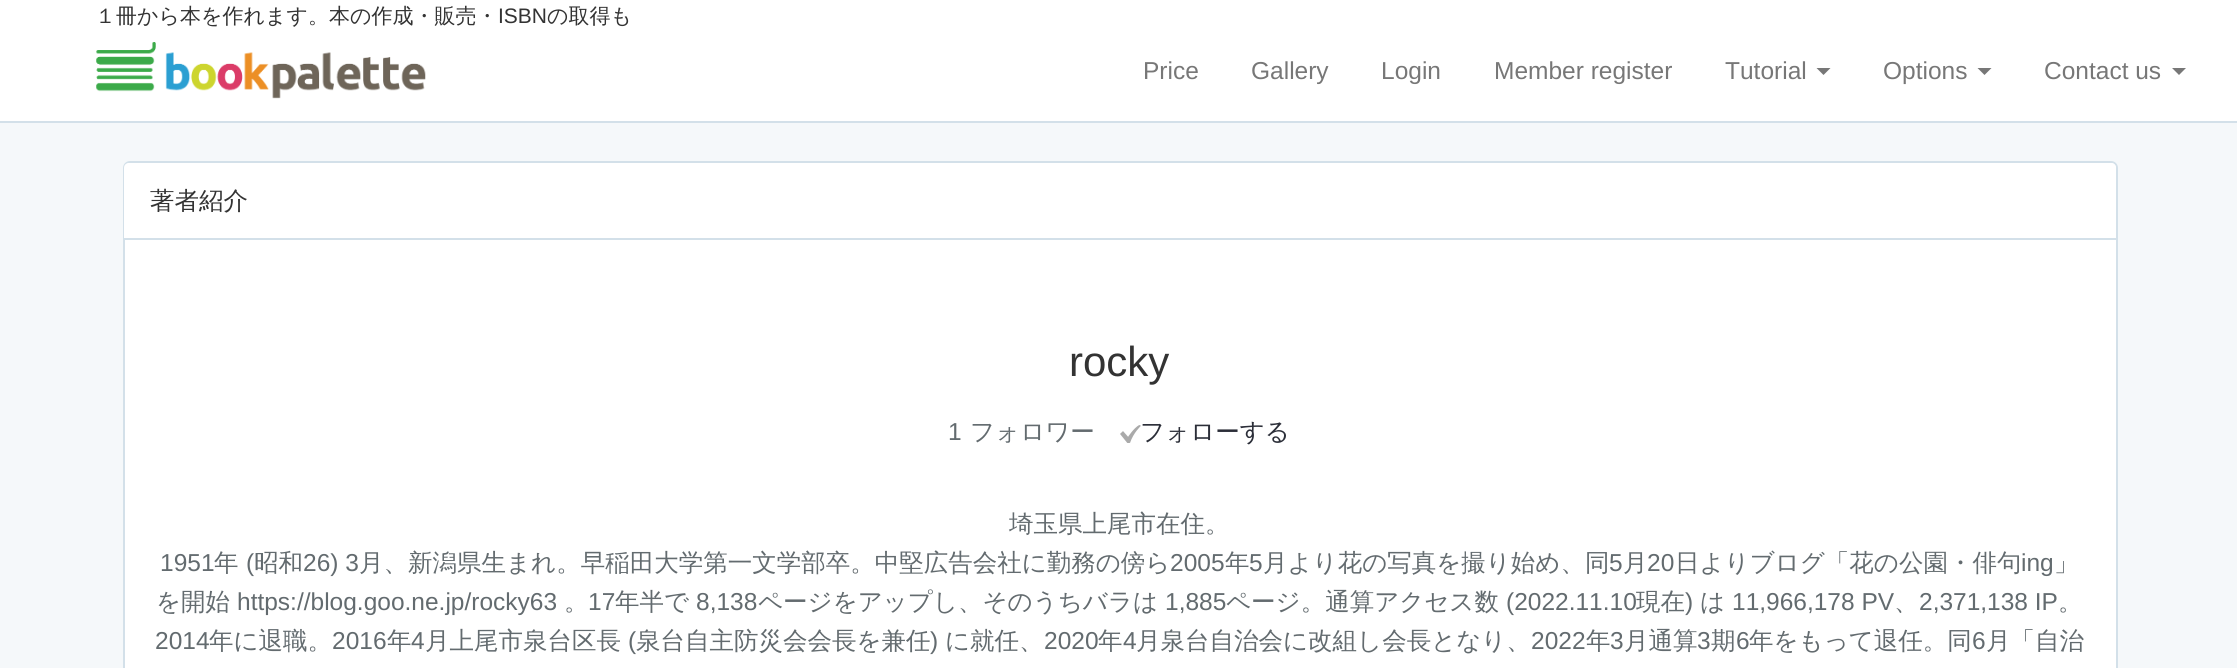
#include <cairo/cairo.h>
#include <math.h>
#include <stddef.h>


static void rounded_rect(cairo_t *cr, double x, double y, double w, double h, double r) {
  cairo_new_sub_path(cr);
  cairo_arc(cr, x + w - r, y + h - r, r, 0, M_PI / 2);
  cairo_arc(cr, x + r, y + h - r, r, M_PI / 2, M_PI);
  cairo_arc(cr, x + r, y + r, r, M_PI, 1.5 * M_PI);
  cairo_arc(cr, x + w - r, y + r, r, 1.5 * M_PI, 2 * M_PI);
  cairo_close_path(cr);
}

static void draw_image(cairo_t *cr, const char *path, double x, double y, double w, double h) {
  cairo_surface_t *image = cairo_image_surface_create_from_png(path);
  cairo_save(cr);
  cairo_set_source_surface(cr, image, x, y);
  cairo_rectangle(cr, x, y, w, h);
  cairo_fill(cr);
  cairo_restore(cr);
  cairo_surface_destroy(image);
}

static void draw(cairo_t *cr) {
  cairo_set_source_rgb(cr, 245 / 255.0, 248 / 255.0, 250 / 255.0);
  cairo_paint(cr);
  cairo_set_source_rgb(cr, 1, 1, 1);
  cairo_rectangle(cr, 0, 0, 2237, 121);
  cairo_fill(cr);
  cairo_set_source_rgb(cr, 211 / 255.0, 224 / 255.0, 233 / 255.0);
  cairo_rectangle(cr, 0, 121, 2237, 2);
  cairo_fill(cr);
  draw_image(cr, "images/1.png", 96, 42, 330, 57);
  cairo_set_source_rgb(cr, 119 / 255.0, 119 / 255.0, 119 / 255.0);
  cairo_new_path(cr);
  cairo_move_to(cr, 1816.5, 68);
  cairo_line_to(cr, 1830.5, 68);
  cairo_line_to(cr, 1823.5, 75);
  cairo_close_path(cr);
  cairo_fill(cr);
  cairo_new_path(cr);
  cairo_move_to(cr, 1977.5, 68);
  cairo_line_to(cr, 1991.5, 68);
  cairo_line_to(cr, 1984.5, 75);
  cairo_close_path(cr);
  cairo_fill(cr);
  cairo_new_path(cr);
  cairo_move_to(cr, 2172, 68);
  cairo_line_to(cr, 2186, 68);
  cairo_line_to(cr, 2179, 75);
  cairo_close_path(cr);
  cairo_fill(cr);
  cairo_set_source_rgb(cr, 1, 1, 1);
  rounded_rect(cr, 124, 162, 1993, 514, 6);
  cairo_fill_preserve(cr);
  cairo_set_source_rgb(cr, 211 / 255.0, 224 / 255.0, 233 / 255.0);
  cairo_stroke(cr);
  cairo_set_source_rgb(cr, 1, 1, 1);
  cairo_new_path(cr);
  cairo_move_to(cr, 129, 163);
  cairo_line_to(cr, 2111, 163);
  cairo_curve_to(cr, 2114, 163, 2116, 165, 2116, 168);
  cairo_line_to(cr, 2116, 240);
  cairo_line_to(cr, 124, 240);
  cairo_line_to(cr, 124, 168);
  cairo_curve_to(cr, 124, 165, 126, 163, 129, 163);
  cairo_close_path(cr);
  cairo_fill(cr);
  cairo_set_source_rgb(cr, 211 / 255.0, 224 / 255.0, 233 / 255.0);
  cairo_rectangle(cr, 124, 238, 1992, 2);
  cairo_fill(cr);
  draw_image(cr, "images/2.png", 1120, 425, 21, 18);
  cairo_select_font_face(cr, "WenQuanYi Zen Hei Medium", CAIRO_FONT_SLANT_NORMAL, CAIRO_FONT_WEIGHT_NORMAL);
  cairo_set_font_size(cr, 21);
  cairo_set_source_rgb(cr, 51 / 255.0, 51 / 255.0, 51 / 255.0);
  cairo_move_to(cr, 95, 23);
  cairo_show_text(cr, "１冊から本を作れます。本の作成・販売・");
  cairo_select_font_face(cr, "Liberation Sans", CAIRO_FONT_SLANT_NORMAL, CAIRO_FONT_WEIGHT_NORMAL);
  cairo_move_to(cr, 498, 23);
  cairo_show_text(cr, "ISBN");
  cairo_select_font_face(cr, "WenQuanYi Zen Hei Medium", CAIRO_FONT_SLANT_NORMAL, CAIRO_FONT_WEIGHT_NORMAL);
  cairo_move_to(cr, 547, 23);
  cairo_show_text(cr, "の取得も");
  cairo_select_font_face(cr, "Liberation Sans", CAIRO_FONT_SLANT_NORMAL, CAIRO_FONT_WEIGHT_NORMAL);
  cairo_set_font_size(cr, 24.5);
  cairo_set_source_rgb(cr, 119 / 255.0, 119 / 255.0, 119 / 255.0);
  cairo_move_to(cr, 1143, 79);
  cairo_show_text(cr, "Price");
  cairo_move_to(cr, 1251, 79);
  cairo_show_text(cr, "Gallery");
  cairo_move_to(cr, 1381, 79);
  cairo_show_text(cr, "Login");
  cairo_move_to(cr, 1494, 79);
  cairo_show_text(cr, "Member register");
  cairo_move_to(cr, 1725, 79);
  cairo_show_text(cr, "Tutorial");
  cairo_move_to(cr, 1883, 79);
  cairo_show_text(cr, "Options");
  cairo_move_to(cr, 2044, 79);
  cairo_show_text(cr, "Contact us");
  cairo_select_font_face(cr, "WenQuanYi Zen Hei Medium", CAIRO_FONT_SLANT_NORMAL, CAIRO_FONT_WEIGHT_NORMAL);
  cairo_set_source_rgb(cr, 51 / 255.0, 51 / 255.0, 51 / 255.0);
  cairo_move_to(cr, 150, 209);
  cairo_show_text(cr, "著者紹介");
  cairo_select_font_face(cr, "Liberation Sans", CAIRO_FONT_SLANT_NORMAL, CAIRO_FONT_WEIGHT_NORMAL);
  cairo_set_font_size(cr, 42);
  cairo_move_to(cr, 1069, 376);
  cairo_show_text(cr, "rocky");
  cairo_set_font_size(cr, 24.5);
  cairo_set_source_rgb(cr, 99 / 255.0, 107 / 255.0, 111 / 255.0);
  cairo_move_to(cr, 948, 440);
  cairo_show_text(cr, "1");
  cairo_select_font_face(cr, "WenQuanYi Zen Hei Medium", CAIRO_FONT_SLANT_NORMAL, CAIRO_FONT_WEIGHT_NORMAL);
  cairo_move_to(cr, 970, 440);
  cairo_show_text(cr, "フォロワー");
  cairo_set_source_rgb(cr, 43 / 255.0, 46 / 255.0, 56 / 255.0);
  cairo_move_to(cr, 1140, 440);
  cairo_show_text(cr, "フォローする");
  cairo_set_source_rgb(cr, 99 / 255.0, 107 / 255.0, 111 / 255.0);
  cairo_move_to(cr, 1009, 532);
  cairo_show_text(cr, "埼玉県上尾市在住。");
  cairo_select_font_face(cr, "Liberation Sans", CAIRO_FONT_SLANT_NORMAL, CAIRO_FONT_WEIGHT_NORMAL);
  cairo_move_to(cr, 160, 571);
  cairo_show_text(cr, "1951");
  cairo_select_font_face(cr, "WenQuanYi Zen Hei Medium", CAIRO_FONT_SLANT_NORMAL, CAIRO_FONT_WEIGHT_NORMAL);
  cairo_move_to(cr, 214, 571);
  cairo_show_text(cr, "年");
  cairo_select_font_face(cr, "Liberation Sans", CAIRO_FONT_SLANT_NORMAL, CAIRO_FONT_WEIGHT_NORMAL);
  cairo_move_to(cr, 246, 571);
  cairo_show_text(cr, "(");
  cairo_select_font_face(cr, "WenQuanYi Zen Hei Medium", CAIRO_FONT_SLANT_NORMAL, CAIRO_FONT_WEIGHT_NORMAL);
  cairo_move_to(cr, 254, 571);
  cairo_show_text(cr, "昭和");
  cairo_select_font_face(cr, "Liberation Sans", CAIRO_FONT_SLANT_NORMAL, CAIRO_FONT_WEIGHT_NORMAL);
  cairo_move_to(cr, 303, 571);
  cairo_show_text(cr, "26) 3");
  cairo_select_font_face(cr, "WenQuanYi Zen Hei Medium", CAIRO_FONT_SLANT_NORMAL, CAIRO_FONT_WEIGHT_NORMAL);
  cairo_move_to(cr, 359, 571);
  cairo_show_text(cr, "月、新潟県生まれ。早稲田大学第一文学部卒。中堅広告会社に勤務の傍ら");
  cairo_select_font_face(cr, "Liberation Sans", CAIRO_FONT_SLANT_NORMAL, CAIRO_FONT_WEIGHT_NORMAL);
  cairo_move_to(cr, 1170, 571);
  cairo_show_text(cr, "2005");
  cairo_select_font_face(cr, "WenQuanYi Zen Hei Medium", CAIRO_FONT_SLANT_NORMAL, CAIRO_FONT_WEIGHT_NORMAL);
  cairo_move_to(cr, 1225, 571);
  cairo_show_text(cr, "年");
  cairo_select_font_face(cr, "Liberation Sans", CAIRO_FONT_SLANT_NORMAL, CAIRO_FONT_WEIGHT_NORMAL);
  cairo_move_to(cr, 1249, 571);
  cairo_show_text(cr, "5");
  cairo_select_font_face(cr, "WenQuanYi Zen Hei Medium", CAIRO_FONT_SLANT_NORMAL, CAIRO_FONT_WEIGHT_NORMAL);
  cairo_move_to(cr, 1263, 571);
  cairo_show_text(cr, "月より花の写真を撮り始め、同");
  cairo_select_font_face(cr, "Liberation Sans", CAIRO_FONT_SLANT_NORMAL, CAIRO_FONT_WEIGHT_NORMAL);
  cairo_move_to(cr, 1609, 571);
  cairo_show_text(cr, "5");
  cairo_select_font_face(cr, "WenQuanYi Zen Hei Medium", CAIRO_FONT_SLANT_NORMAL, CAIRO_FONT_WEIGHT_NORMAL);
  cairo_move_to(cr, 1623, 571);
  cairo_show_text(cr, "月");
  cairo_select_font_face(cr, "Liberation Sans", CAIRO_FONT_SLANT_NORMAL, CAIRO_FONT_WEIGHT_NORMAL);
  cairo_move_to(cr, 1647, 571);
  cairo_show_text(cr, "20");
  cairo_select_font_face(cr, "WenQuanYi Zen Hei Medium", CAIRO_FONT_SLANT_NORMAL, CAIRO_FONT_WEIGHT_NORMAL);
  cairo_move_to(cr, 1675, 571);
  cairo_show_text(cr, "日よりブログ「花の公園・俳句");
  cairo_select_font_face(cr, "Liberation Sans", CAIRO_FONT_SLANT_NORMAL, CAIRO_FONT_WEIGHT_NORMAL);
  cairo_move_to(cr, 2021, 571);
  cairo_show_text(cr, "ing");
  cairo_select_font_face(cr, "WenQuanYi Zen Hei Medium", CAIRO_FONT_SLANT_NORMAL, CAIRO_FONT_WEIGHT_NORMAL);
  cairo_move_to(cr, 2054, 571);
  cairo_show_text(cr, "」");
  cairo_move_to(cr, 156, 610);
  cairo_show_text(cr, "を開始");
  cairo_select_font_face(cr, "Liberation Sans", CAIRO_FONT_SLANT_NORMAL, CAIRO_FONT_WEIGHT_NORMAL);
  cairo_move_to(cr, 237, 610);
  cairo_show_text(cr, "https://blog.goo.ne.jp/rocky63");
  cairo_select_font_face(cr, "WenQuanYi Zen Hei Medium", CAIRO_FONT_SLANT_NORMAL, CAIRO_FONT_WEIGHT_NORMAL);
  cairo_move_to(cr, 564, 610);
  cairo_show_text(cr, "。");
  cairo_select_font_face(cr, "Liberation Sans", CAIRO_FONT_SLANT_NORMAL, CAIRO_FONT_WEIGHT_NORMAL);
  cairo_move_to(cr, 588, 610);
  cairo_show_text(cr, "17");
  cairo_select_font_face(cr, "WenQuanYi Zen Hei Medium", CAIRO_FONT_SLANT_NORMAL, CAIRO_FONT_WEIGHT_NORMAL);
  cairo_move_to(cr, 615, 610);
  cairo_show_text(cr, "年半で");
  cairo_select_font_face(cr, "Liberation Sans", CAIRO_FONT_SLANT_NORMAL, CAIRO_FONT_WEIGHT_NORMAL);
  cairo_move_to(cr, 696, 610);
  cairo_show_text(cr, "8,138");
  cairo_select_font_face(cr, "WenQuanYi Zen Hei Medium", CAIRO_FONT_SLANT_NORMAL, CAIRO_FONT_WEIGHT_NORMAL);
  cairo_move_to(cr, 758, 610);
  cairo_show_text(cr, "ページをアップし、そのうちバラは");
  cairo_select_font_face(cr, "Liberation Sans", CAIRO_FONT_SLANT_NORMAL, CAIRO_FONT_WEIGHT_NORMAL);
  cairo_move_to(cr, 1165, 610);
  cairo_show_text(cr, "1,885");
  cairo_select_font_face(cr, "WenQuanYi Zen Hei Medium", CAIRO_FONT_SLANT_NORMAL, CAIRO_FONT_WEIGHT_NORMAL);
  cairo_move_to(cr, 1226, 610);
  cairo_show_text(cr, "ページ。通算アクセス数");
  cairo_select_font_face(cr, "Liberation Sans", CAIRO_FONT_SLANT_NORMAL, CAIRO_FONT_WEIGHT_NORMAL);
  cairo_move_to(cr, 1506, 610);
  cairo_show_text(cr, "(2022.11.10");
  cairo_select_font_face(cr, "WenQuanYi Zen Hei Medium", CAIRO_FONT_SLANT_NORMAL, CAIRO_FONT_WEIGHT_NORMAL);
  cairo_move_to(cr, 1636, 610);
  cairo_show_text(cr, "現在");
  cairo_select_font_face(cr, "Liberation Sans", CAIRO_FONT_SLANT_NORMAL, CAIRO_FONT_WEIGHT_NORMAL);
  cairo_move_to(cr, 1685, 610);
  cairo_show_text(cr, ")");
  cairo_select_font_face(cr, "WenQuanYi Zen Hei Medium", CAIRO_FONT_SLANT_NORMAL, CAIRO_FONT_WEIGHT_NORMAL);
  cairo_move_to(cr, 1700, 610);
  cairo_show_text(cr, "は");
  cairo_select_font_face(cr, "Liberation Sans", CAIRO_FONT_SLANT_NORMAL, CAIRO_FONT_WEIGHT_NORMAL);
  cairo_move_to(cr, 1732, 610);
  cairo_show_text(cr, "11,966,178 PV");
  cairo_select_font_face(cr, "WenQuanYi Zen Hei Medium", CAIRO_FONT_SLANT_NORMAL, CAIRO_FONT_WEIGHT_NORMAL);
  cairo_move_to(cr, 1894, 610);
  cairo_show_text(cr, "、");
  cairo_select_font_face(cr, "Liberation Sans", CAIRO_FONT_SLANT_NORMAL, CAIRO_FONT_WEIGHT_NORMAL);
  cairo_move_to(cr, 1919, 610);
  cairo_show_text(cr, "2,371,138 IP");
  cairo_select_font_face(cr, "WenQuanYi Zen Hei Medium", CAIRO_FONT_SLANT_NORMAL, CAIRO_FONT_WEIGHT_NORMAL);
  cairo_move_to(cr, 2058, 610);
  cairo_show_text(cr, "。");
  cairo_select_font_face(cr, "Liberation Sans", CAIRO_FONT_SLANT_NORMAL, CAIRO_FONT_WEIGHT_NORMAL);
  cairo_move_to(cr, 155, 649);
  cairo_show_text(cr, "2014");
  cairo_select_font_face(cr, "WenQuanYi Zen Hei Medium", CAIRO_FONT_SLANT_NORMAL, CAIRO_FONT_WEIGHT_NORMAL);
  cairo_move_to(cr, 209, 649);
  cairo_show_text(cr, "年に退職。");
  cairo_select_font_face(cr, "Liberation Sans", CAIRO_FONT_SLANT_NORMAL, CAIRO_FONT_WEIGHT_NORMAL);
  cairo_move_to(cr, 332, 649);
  cairo_show_text(cr, "2016");
  cairo_select_font_face(cr, "WenQuanYi Zen Hei Medium", CAIRO_FONT_SLANT_NORMAL, CAIRO_FONT_WEIGHT_NORMAL);
  cairo_move_to(cr, 387, 649);
  cairo_show_text(cr, "年");
  cairo_select_font_face(cr, "Liberation Sans", CAIRO_FONT_SLANT_NORMAL, CAIRO_FONT_WEIGHT_NORMAL);
  cairo_move_to(cr, 411, 649);
  cairo_show_text(cr, "4");
  cairo_select_font_face(cr, "WenQuanYi Zen Hei Medium", CAIRO_FONT_SLANT_NORMAL, CAIRO_FONT_WEIGHT_NORMAL);
  cairo_move_to(cr, 425, 649);
  cairo_show_text(cr, "月上尾市泉台区長");
  cairo_select_font_face(cr, "Liberation Sans", CAIRO_FONT_SLANT_NORMAL, CAIRO_FONT_WEIGHT_NORMAL);
  cairo_move_to(cr, 628, 649);
  cairo_show_text(cr, "(");
  cairo_select_font_face(cr, "WenQuanYi Zen Hei Medium", CAIRO_FONT_SLANT_NORMAL, CAIRO_FONT_WEIGHT_NORMAL);
  cairo_move_to(cr, 636, 649);
  cairo_show_text(cr, "泉台自主防災会会長を兼任");
  cairo_select_font_face(cr, "Liberation Sans", CAIRO_FONT_SLANT_NORMAL, CAIRO_FONT_WEIGHT_NORMAL);
  cairo_move_to(cr, 930, 649);
  cairo_show_text(cr, ")");
  cairo_select_font_face(cr, "WenQuanYi Zen Hei Medium", CAIRO_FONT_SLANT_NORMAL, CAIRO_FONT_WEIGHT_NORMAL);
  cairo_move_to(cr, 945, 649);
  cairo_show_text(cr, "に就任、");
  cairo_select_font_face(cr, "Liberation Sans", CAIRO_FONT_SLANT_NORMAL, CAIRO_FONT_WEIGHT_NORMAL);
  cairo_move_to(cr, 1044, 649);
  cairo_show_text(cr, "2020");
  cairo_select_font_face(cr, "WenQuanYi Zen Hei Medium", CAIRO_FONT_SLANT_NORMAL, CAIRO_FONT_WEIGHT_NORMAL);
  cairo_move_to(cr, 1098, 649);
  cairo_show_text(cr, "年");
  cairo_select_font_face(cr, "Liberation Sans", CAIRO_FONT_SLANT_NORMAL, CAIRO_FONT_WEIGHT_NORMAL);
  cairo_move_to(cr, 1123, 649);
  cairo_show_text(cr, "4");
  cairo_select_font_face(cr, "WenQuanYi Zen Hei Medium", CAIRO_FONT_SLANT_NORMAL, CAIRO_FONT_WEIGHT_NORMAL);
  cairo_move_to(cr, 1136, 649);
  cairo_show_text(cr, "月泉台自治会に改組し会長となり、");
  cairo_select_font_face(cr, "Liberation Sans", CAIRO_FONT_SLANT_NORMAL, CAIRO_FONT_WEIGHT_NORMAL);
  cairo_move_to(cr, 1531, 649);
  cairo_show_text(cr, "2022");
  cairo_select_font_face(cr, "WenQuanYi Zen Hei Medium", CAIRO_FONT_SLANT_NORMAL, CAIRO_FONT_WEIGHT_NORMAL);
  cairo_move_to(cr, 1586, 649);
  cairo_show_text(cr, "年");
  cairo_select_font_face(cr, "Liberation Sans", CAIRO_FONT_SLANT_NORMAL, CAIRO_FONT_WEIGHT_NORMAL);
  cairo_move_to(cr, 1610, 649);
  cairo_show_text(cr, "3");
  cairo_select_font_face(cr, "WenQuanYi Zen Hei Medium", CAIRO_FONT_SLANT_NORMAL, CAIRO_FONT_WEIGHT_NORMAL);
  cairo_move_to(cr, 1624, 649);
  cairo_show_text(cr, "月通算");
  cairo_select_font_face(cr, "Liberation Sans", CAIRO_FONT_SLANT_NORMAL, CAIRO_FONT_WEIGHT_NORMAL);
  cairo_move_to(cr, 1697, 649);
  cairo_show_text(cr, "3");
  cairo_select_font_face(cr, "WenQuanYi Zen Hei Medium", CAIRO_FONT_SLANT_NORMAL, CAIRO_FONT_WEIGHT_NORMAL);
  cairo_move_to(cr, 1711, 649);
  cairo_show_text(cr, "期");
  cairo_select_font_face(cr, "Liberation Sans", CAIRO_FONT_SLANT_NORMAL, CAIRO_FONT_WEIGHT_NORMAL);
  cairo_move_to(cr, 1736, 649);
  cairo_show_text(cr, "6");
  cairo_select_font_face(cr, "WenQuanYi Zen Hei Medium", CAIRO_FONT_SLANT_NORMAL, CAIRO_FONT_WEIGHT_NORMAL);
  cairo_move_to(cr, 1749, 649);
  cairo_show_text(cr, "年をもって退任。同");
  cairo_select_font_face(cr, "Liberation Sans", CAIRO_FONT_SLANT_NORMAL, CAIRO_FONT_WEIGHT_NORMAL);
  cairo_move_to(cr, 1972, 649);
  cairo_show_text(cr, "6");
  cairo_select_font_face(cr, "WenQuanYi Zen Hei Medium", CAIRO_FONT_SLANT_NORMAL, CAIRO_FONT_WEIGHT_NORMAL);
  cairo_move_to(cr, 1986, 649);
  cairo_show_text(cr, "月「自治");
}

int main(void) {
  cairo_surface_t *surface = cairo_image_surface_create(CAIRO_FORMAT_RGB24, 2237, 668);
  cairo_t *cr = cairo_create(surface);
  cairo_font_options_t *options = cairo_font_options_create();
  cairo_font_options_set_hint_metrics(options, CAIRO_HINT_METRICS_OFF);
  cairo_font_options_set_hint_style(options, CAIRO_HINT_STYLE_NONE);
  cairo_set_font_options(cr, options);
  cairo_set_miter_limit(cr, 4);
  draw(cr);
  cairo_surface_write_to_png(surface, "out.png");
  cairo_font_options_destroy(options);
  cairo_destroy(cr);
  cairo_surface_destroy(surface);
  return 0;
}
